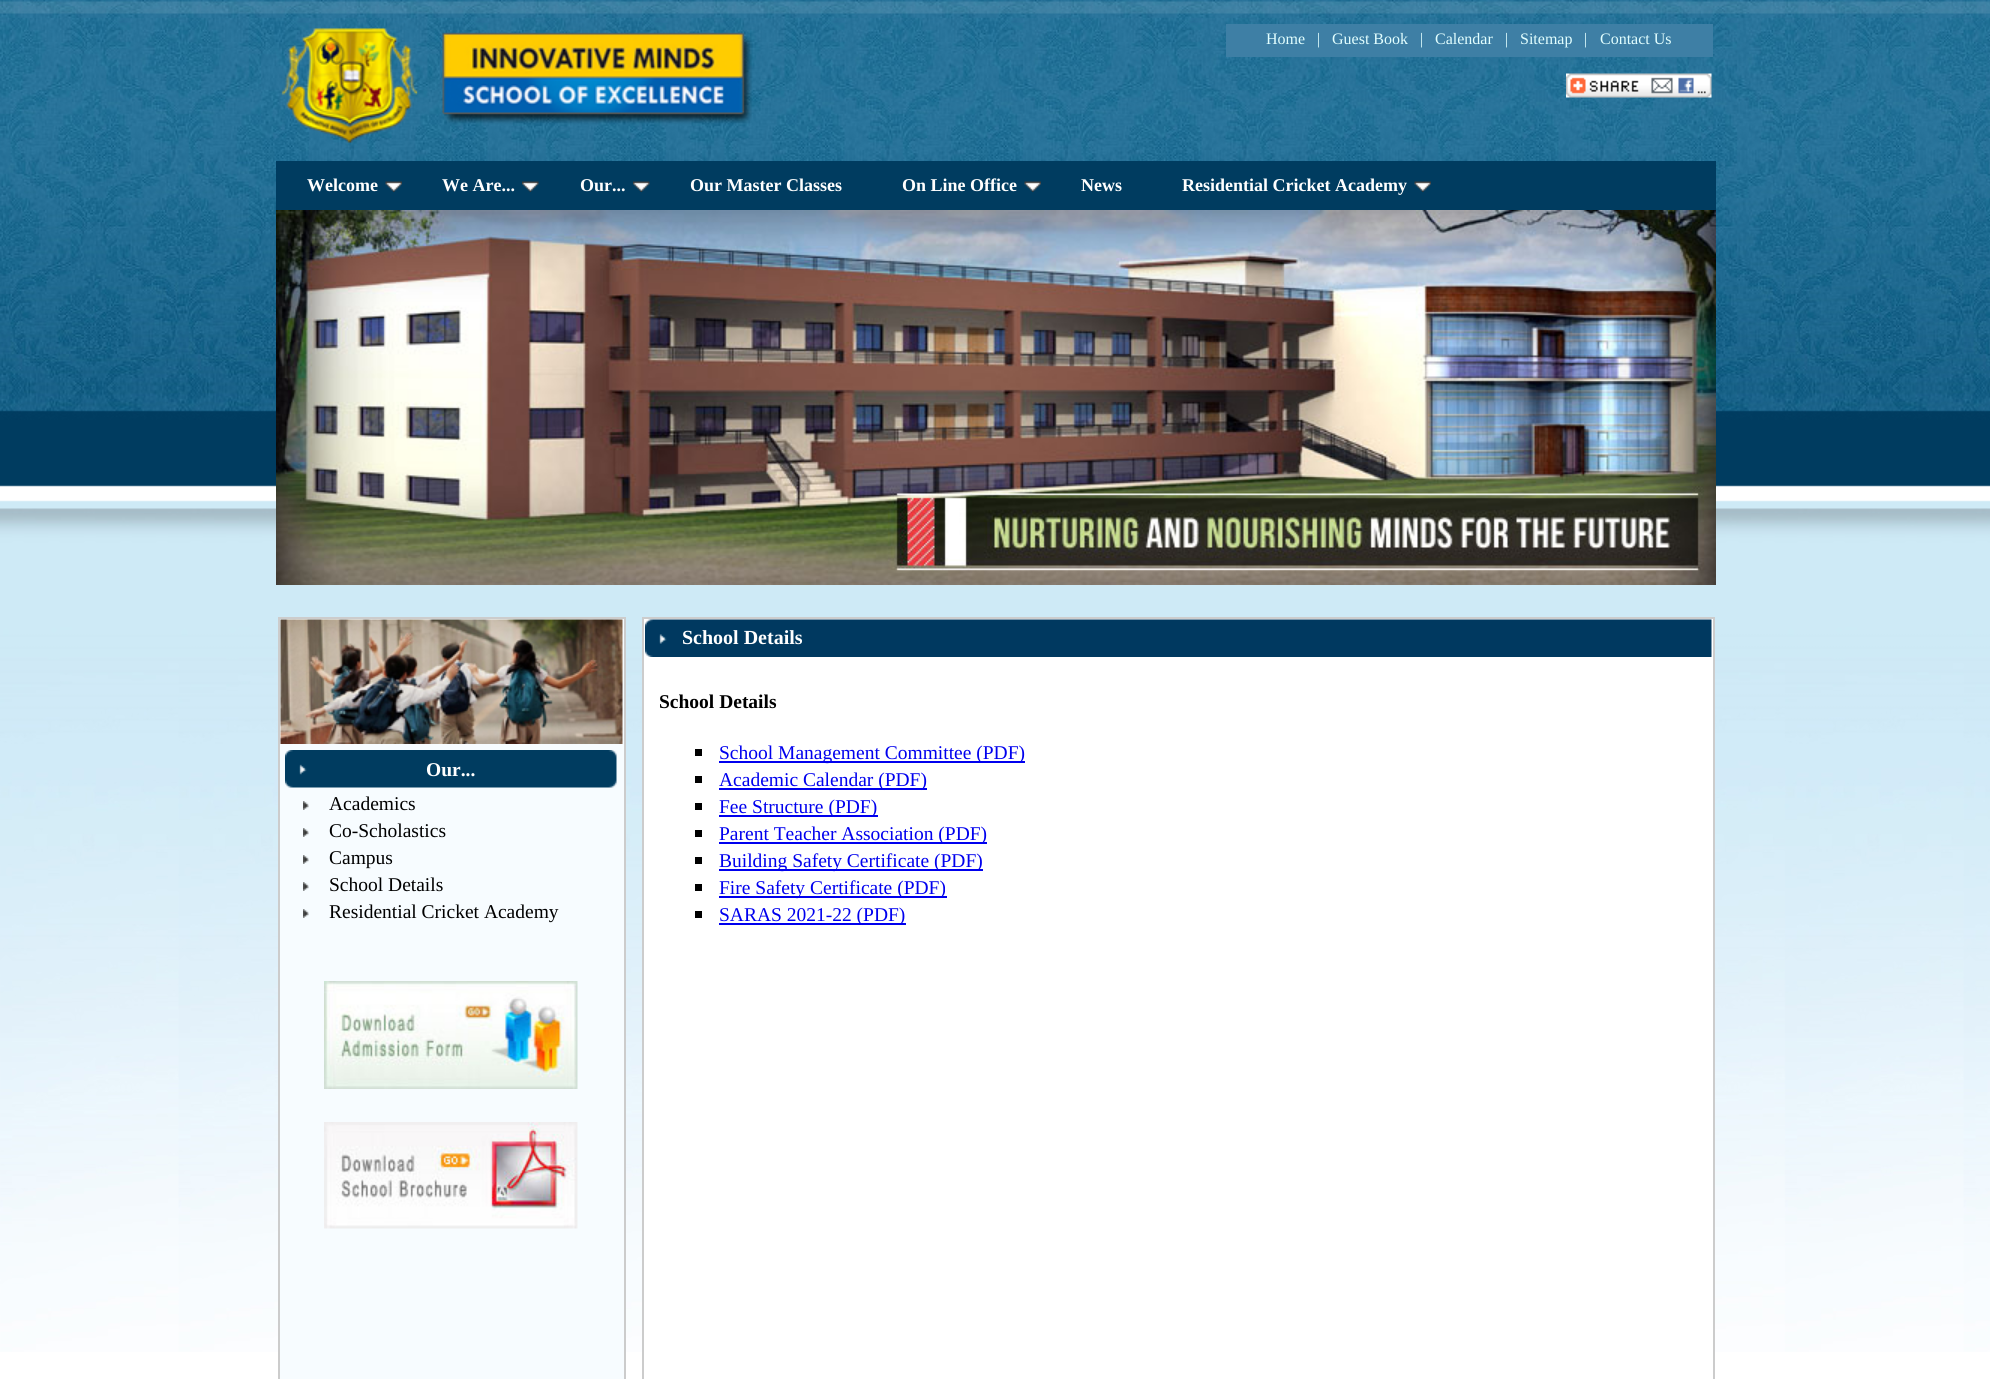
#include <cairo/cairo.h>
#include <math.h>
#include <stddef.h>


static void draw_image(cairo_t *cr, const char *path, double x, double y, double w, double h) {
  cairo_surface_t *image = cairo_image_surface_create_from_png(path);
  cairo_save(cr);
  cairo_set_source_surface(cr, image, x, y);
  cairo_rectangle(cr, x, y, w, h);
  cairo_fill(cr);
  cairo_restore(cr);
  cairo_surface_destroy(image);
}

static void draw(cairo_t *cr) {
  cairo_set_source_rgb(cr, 1, 1, 1);
  cairo_paint(cr);
  draw_image(cr, "images/1.png", 0, 0, 1990, 1352);
  draw_image(cr, "images/2.png", 281, 28, 471, 115);
  cairo_set_source_rgb(cr, 62 / 255.0, 127 / 255.0, 165 / 255.0);
  cairo_rectangle(cr, 1226, 24, 487, 33);
  cairo_fill(cr);
  draw_image(cr, "images/3.png", 1566, 73, 146, 25);
  cairo_set_source_rgb(cr, 0, 60 / 255.0, 96 / 255.0);
  cairo_rectangle(cr, 276, 161, 1440, 49);
  cairo_fill(cr);
  draw_image(cr, "images/4.png", 385, 181, 17, 11);
  draw_image(cr, "images/5.png", 522, 181, 17, 11);
  draw_image(cr, "images/6.png", 633, 181, 17, 11);
  draw_image(cr, "images/7.png", 1024, 181, 17, 11);
  draw_image(cr, "images/4.png", 1414, 181, 17, 11);
  draw_image(cr, "images/8.png", 276, 210, 1440, 375);
  cairo_set_source_rgb(cr, 247 / 255.0, 252 / 255.0, 1);
  cairo_rectangle(cr, 280, 619, 344, 760);
  cairo_fill(cr);
  cairo_set_source_rgb(cr, 204 / 255.0, 204 / 255.0, 204 / 255.0);
  cairo_rectangle(cr, 278, 617, 348, 2);
  cairo_fill(cr);
  cairo_rectangle(cr, 624, 617, 2, 762);
  cairo_fill(cr);
  cairo_rectangle(cr, 278, 617, 2, 762);
  cairo_fill(cr);
  draw_image(cr, "images/9.png", 280, 619, 343, 125);
  draw_image(cr, "images/10.png", 285, 750, 332, 38);
  draw_image(cr, "images/11.png", 303, 801, 6, 9);
  draw_image(cr, "images/11.png", 303, 828, 6, 9);
  draw_image(cr, "images/11.png", 303, 855, 6, 9);
  draw_image(cr, "images/11.png", 303, 882, 6, 9);
  draw_image(cr, "images/11.png", 303, 909, 6, 9);
  draw_image(cr, "images/12.png", 324, 981, 254, 108);
  draw_image(cr, "images/13.png", 324, 1122, 254, 107);
  cairo_set_source_rgb(cr, 1, 1, 1);
  cairo_rectangle(cr, 644, 619, 1069, 733);
  cairo_fill(cr);
  cairo_set_source_rgb(cr, 204 / 255.0, 204 / 255.0, 204 / 255.0);
  cairo_rectangle(cr, 642, 617, 1073, 2);
  cairo_fill(cr);
  cairo_rectangle(cr, 1713, 617, 2, 762);
  cairo_fill(cr);
  cairo_rectangle(cr, 642, 617, 2, 762);
  cairo_fill(cr);
  draw_image(cr, "images/14.png", 645, 619, 1067, 38);
  cairo_set_source_rgb(cr, 0, 0, 0);
  cairo_rectangle(cr, 695, 749, 7, 7);
  cairo_fill(cr);
  cairo_set_source_rgb(cr, 0, 0, 238 / 255.0);
  cairo_rectangle(cr, 719, 761, 306, 2);
  cairo_fill(cr);
  cairo_set_source_rgb(cr, 0, 0, 0);
  cairo_rectangle(cr, 695, 776, 7, 7);
  cairo_fill(cr);
  cairo_set_source_rgb(cr, 0, 0, 238 / 255.0);
  cairo_rectangle(cr, 719, 788, 208, 2);
  cairo_fill(cr);
  cairo_set_source_rgb(cr, 0, 0, 0);
  cairo_rectangle(cr, 695, 803, 7, 7);
  cairo_fill(cr);
  cairo_set_source_rgb(cr, 0, 0, 238 / 255.0);
  cairo_rectangle(cr, 719, 815, 159, 2);
  cairo_fill(cr);
  cairo_set_source_rgb(cr, 0, 0, 0);
  cairo_rectangle(cr, 695, 830, 7, 7);
  cairo_fill(cr);
  cairo_set_source_rgb(cr, 0, 0, 238 / 255.0);
  cairo_rectangle(cr, 719, 842, 268, 2);
  cairo_fill(cr);
  cairo_set_source_rgb(cr, 0, 0, 0);
  cairo_rectangle(cr, 695, 857, 7, 7);
  cairo_fill(cr);
  cairo_set_source_rgb(cr, 0, 0, 238 / 255.0);
  cairo_rectangle(cr, 719, 869, 264, 2);
  cairo_fill(cr);
  cairo_set_source_rgb(cr, 0, 0, 0);
  cairo_rectangle(cr, 695, 884, 7, 7);
  cairo_fill(cr);
  cairo_set_source_rgb(cr, 0, 0, 238 / 255.0);
  cairo_rectangle(cr, 719, 896, 228, 2);
  cairo_fill(cr);
  cairo_set_source_rgb(cr, 0, 0, 0);
  cairo_rectangle(cr, 695, 911, 7, 7);
  cairo_fill(cr);
  cairo_set_source_rgb(cr, 0, 0, 238 / 255.0);
  cairo_rectangle(cr, 719, 923, 187, 2);
  cairo_fill(cr);
  cairo_select_font_face(cr, "Liberation Serif", CAIRO_FONT_SLANT_NORMAL, CAIRO_FONT_WEIGHT_NORMAL);
  cairo_set_font_size(cr, 16);
  cairo_set_source_rgb(cr, 226 / 255.0, 1, 1);
  cairo_move_to(cr, 1266, 44);
  cairo_show_text(cr, "Home");
  cairo_move_to(cr, 1317, 44);
  cairo_show_text(cr, "|");
  cairo_move_to(cr, 1332, 44);
  cairo_show_text(cr, "Guest Book");
  cairo_move_to(cr, 1420, 44);
  cairo_show_text(cr, "|");
  cairo_move_to(cr, 1435, 44);
  cairo_show_text(cr, "Calendar");
  cairo_move_to(cr, 1505, 44);
  cairo_show_text(cr, "|");
  cairo_move_to(cr, 1520, 44);
  cairo_show_text(cr, "Sitemap");
  cairo_move_to(cr, 1584, 44);
  cairo_show_text(cr, "|");
  cairo_move_to(cr, 1600, 44);
  cairo_show_text(cr, "Contact Us");
  cairo_select_font_face(cr, "Liberation Serif", CAIRO_FONT_SLANT_NORMAL, CAIRO_FONT_WEIGHT_BOLD);
  cairo_set_font_size(cr, 18);
  cairo_set_source_rgb(cr, 1, 1, 1);
  cairo_move_to(cr, 307, 191);
  cairo_show_text(cr, "Welcome");
  cairo_move_to(cr, 442, 191);
  cairo_show_text(cr, "We Are...");
  cairo_move_to(cr, 580, 191);
  cairo_show_text(cr, "Our...");
  cairo_move_to(cr, 690, 191);
  cairo_show_text(cr, "Our Master Classes");
  cairo_move_to(cr, 902, 191);
  cairo_show_text(cr, "On Line Office");
  cairo_move_to(cr, 1081, 191);
  cairo_show_text(cr, "News");
  cairo_move_to(cr, 1182, 191);
  cairo_show_text(cr, "Residential Cricket Academy");
  cairo_set_font_size(cr, 19.5);
  cairo_move_to(cr, 426, 776);
  cairo_show_text(cr, "Our...");
  cairo_select_font_face(cr, "Liberation Serif", CAIRO_FONT_SLANT_NORMAL, CAIRO_FONT_WEIGHT_NORMAL);
  cairo_set_source_rgb(cr, 0, 0, 0);
  cairo_move_to(cr, 329, 810);
  cairo_show_text(cr, "Academics");
  cairo_move_to(cr, 329, 837);
  cairo_show_text(cr, "Co-Scholastics");
  cairo_move_to(cr, 329, 864);
  cairo_show_text(cr, "Campus");
  cairo_move_to(cr, 329, 891);
  cairo_show_text(cr, "School Details");
  cairo_move_to(cr, 329, 918);
  cairo_show_text(cr, "Residential Cricket Academy");
  cairo_select_font_face(cr, "Liberation Serif", CAIRO_FONT_SLANT_NORMAL, CAIRO_FONT_WEIGHT_BOLD);
  cairo_set_font_size(cr, 20);
  cairo_set_source_rgb(cr, 1, 1, 1);
  cairo_move_to(cr, 682, 644);
  cairo_show_text(cr, "School Details");
  cairo_set_font_size(cr, 19.5);
  cairo_set_source_rgb(cr, 0, 0, 0);
  cairo_move_to(cr, 659, 708);
  cairo_show_text(cr, "School Details");
  cairo_select_font_face(cr, "Liberation Serif", CAIRO_FONT_SLANT_NORMAL, CAIRO_FONT_WEIGHT_NORMAL);
  cairo_set_source_rgb(cr, 0, 0, 238 / 255.0);
  cairo_move_to(cr, 719, 759);
  cairo_show_text(cr, "School Management Committee (PDF)");
  cairo_move_to(cr, 719, 786);
  cairo_show_text(cr, "Academic Calendar (PDF)");
  cairo_move_to(cr, 719, 813);
  cairo_show_text(cr, "Fee Structure (PDF)");
  cairo_move_to(cr, 719, 840);
  cairo_show_text(cr, "Parent Teacher Association (PDF)");
  cairo_move_to(cr, 719, 867);
  cairo_show_text(cr, "Building Safety Certificate (PDF)");
  cairo_move_to(cr, 719, 894);
  cairo_show_text(cr, "Fire Safety Certificate (PDF)");
  cairo_move_to(cr, 719, 921);
  cairo_show_text(cr, "SARAS 2021-22 (PDF)");
}

int main(void) {
  cairo_surface_t *surface = cairo_image_surface_create(CAIRO_FORMAT_RGB24, 1990, 1379);
  cairo_t *cr = cairo_create(surface);
  cairo_font_options_t *options = cairo_font_options_create();
  cairo_font_options_set_hint_metrics(options, CAIRO_HINT_METRICS_OFF);
  cairo_font_options_set_hint_style(options, CAIRO_HINT_STYLE_NONE);
  cairo_set_font_options(cr, options);
  cairo_set_miter_limit(cr, 4);
  draw(cr);
  cairo_surface_write_to_png(surface, "out.png");
  cairo_font_options_destroy(options);
  cairo_destroy(cr);
  cairo_surface_destroy(surface);
  return 0;
}
